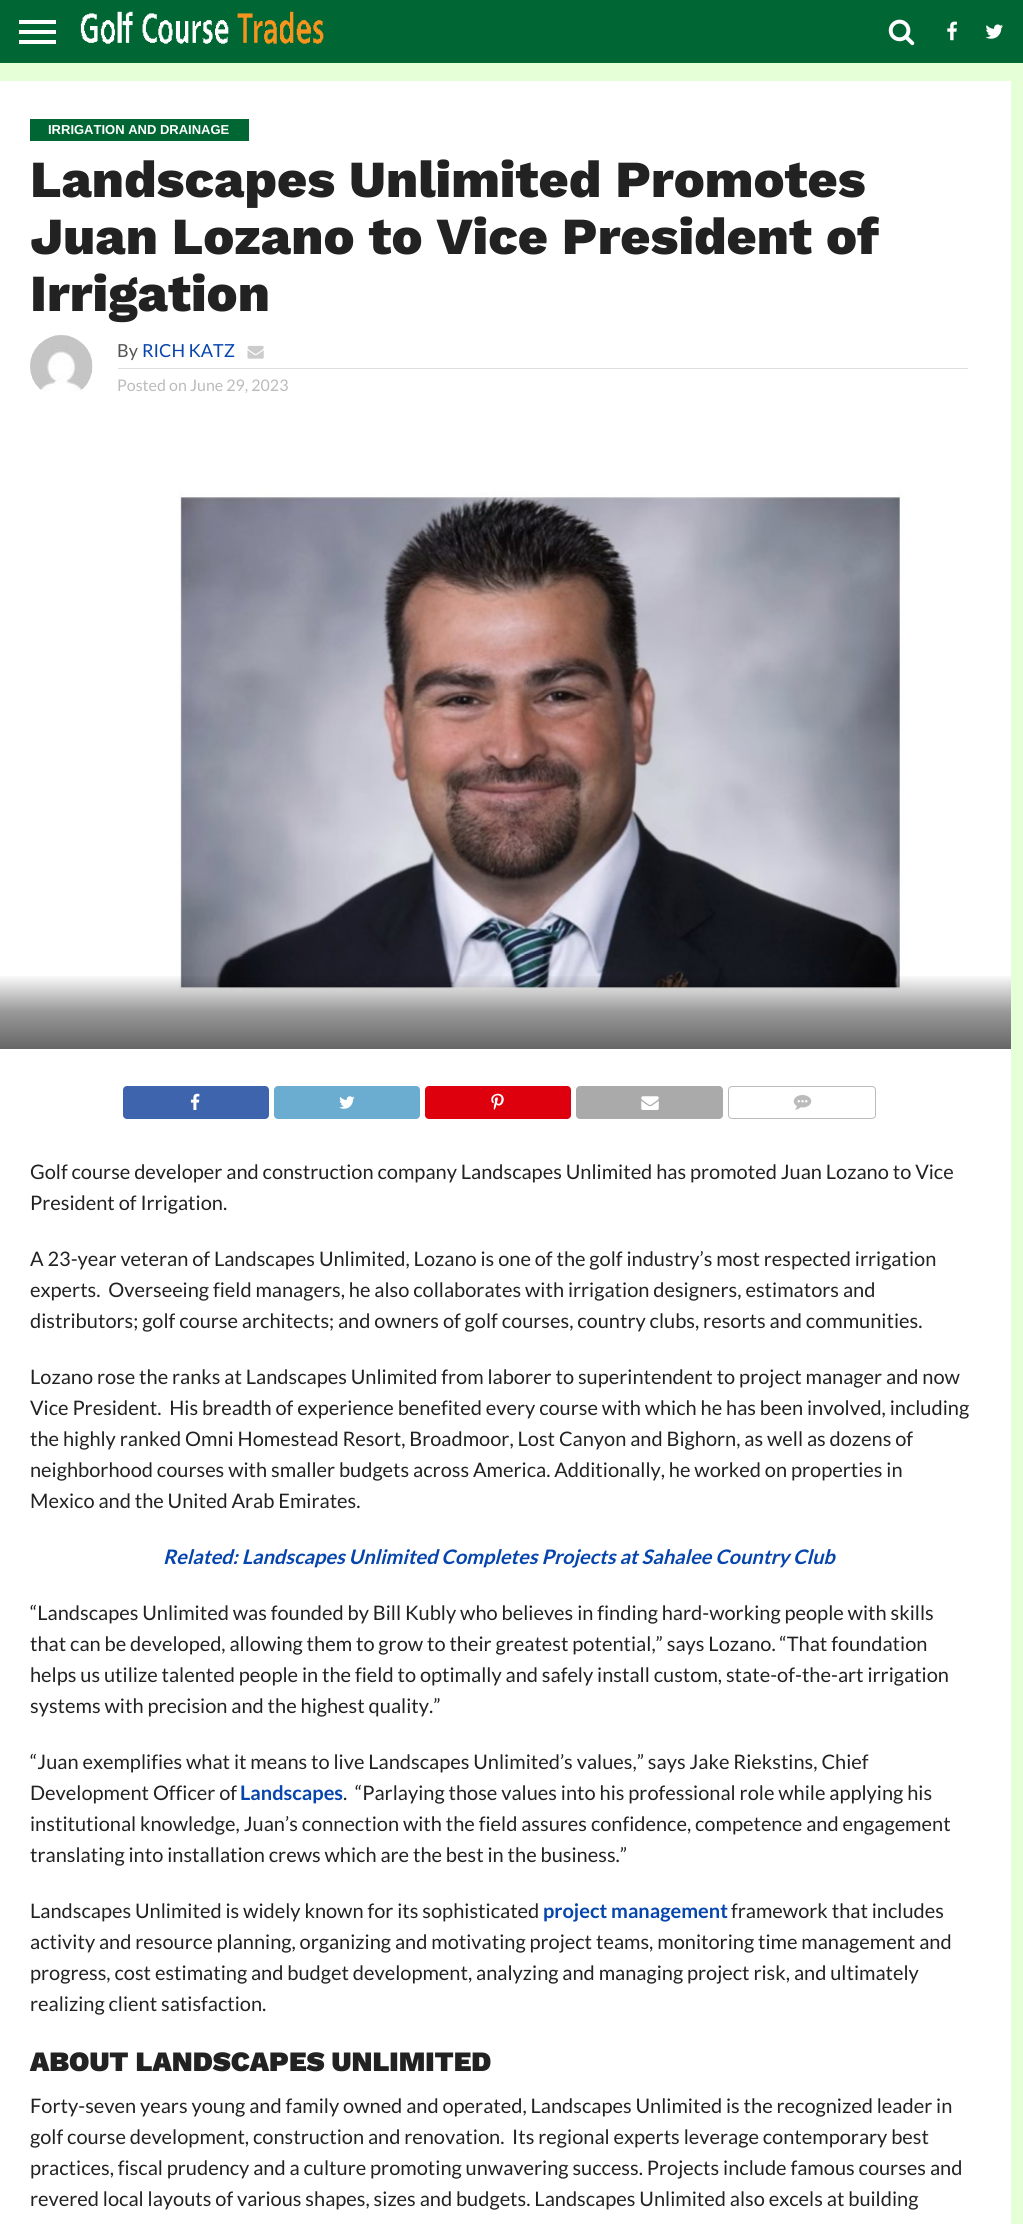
#include <cairo/cairo.h>
#include <math.h>
#include <stddef.h>


static void rounded_rect(cairo_t *cr, double x, double y, double w, double h, double r) {
  cairo_new_sub_path(cr);
  cairo_arc(cr, x + w - r, y + h - r, r, 0, M_PI / 2);
  cairo_arc(cr, x + r, y + h - r, r, M_PI / 2, M_PI);
  cairo_arc(cr, x + r, y + r, r, M_PI, 1.5 * M_PI);
  cairo_arc(cr, x + w - r, y + r, r, 1.5 * M_PI, 2 * M_PI);
  cairo_close_path(cr);
}

static void draw_image(cairo_t *cr, const char *path, double x, double y, double w, double h) {
  cairo_surface_t *image = cairo_image_surface_create_from_png(path);
  cairo_save(cr);
  cairo_set_source_surface(cr, image, x, y);
  cairo_rectangle(cr, x, y, w, h);
  cairo_fill(cr);
  cairo_restore(cr);
  cairo_surface_destroy(image);
}

static void draw(cairo_t *cr) {
  cairo_pattern_t *gradient;
  cairo_set_source_rgb(cr, 229 / 255.0, 1, 214 / 255.0);
  cairo_paint(cr);
  cairo_set_source_rgb(cr, 0, 102 / 255.0, 51 / 255.0);
  cairo_rectangle(cr, 0, 0, 1023, 63);
  cairo_fill(cr);
  cairo_set_source_rgb(cr, 1, 1, 1);
  cairo_rectangle(cr, 19, 20, 37, 4);
  cairo_fill(cr);
  cairo_rectangle(cr, 19, 30, 37, 4);
  cairo_fill(cr);
  cairo_rectangle(cr, 19, 40, 37, 4);
  cairo_fill(cr);
  draw_image(cr, "images/1.png", 80, 11, 244, 33);
  draw_image(cr, "images/2.png", 888, 19, 27, 27);
  draw_image(cr, "images/3.png", 947, 21, 10, 20);
  draw_image(cr, "images/4.png", 985, 24, 18, 15);
  cairo_rectangle(cr, 0, 81, 1011, 2143);
  cairo_fill(cr);
  cairo_set_source_rgb(cr, 0, 102 / 255.0, 51 / 255.0);
  cairo_rectangle(cr, 30, 119, 219, 22);
  cairo_fill(cr);
  draw_image(cr, "images/5.png", 30, 335, 63, 58);
  cairo_set_source_rgb(cr, 221 / 255.0, 221 / 255.0, 221 / 255.0);
  cairo_rectangle(cr, 118, 368, 850, 1);
  cairo_fill(cr);
  draw_image(cr, "images/6.png", 247, 345, 17, 14);
  draw_image(cr, "images/7.png", 179, 492, 726, 499);
  gradient = cairo_pattern_create_linear(499, 974, 499, 1049);
  cairo_pattern_add_color_stop_rgba(gradient, 0, 0, 0, 0, 0);
  cairo_pattern_add_color_stop_rgba(gradient, 0.5, 0, 0, 0, 0.4);
  cairo_pattern_add_color_stop_rgba(gradient, 1, 0, 0, 0, 0.6);
  cairo_set_source(cr, gradient);
  cairo_pattern_destroy(gradient);
  cairo_rectangle(cr, 0, 976, 1011, 73);
  cairo_fill(cr);
  cairo_set_source_rgb(cr, 62 / 255.0, 100 / 255.0, 173 / 255.0);
  rounded_rect(cr, 123, 1086, 146, 33, 4);
  cairo_fill(cr);
  draw_image(cr, "images/8.png", 190, 1093, 10, 17);
  cairo_set_source_rgb(cr, 106 / 255.0, 173 / 255.0, 209 / 255.0);
  rounded_rect(cr, 274, 1086, 146, 33, 4);
  cairo_fill(cr);
  draw_image(cr, "images/9.png", 339, 1096, 16, 13);
  cairo_set_source_rgb(cr, 222 / 255.0, 1 / 255.0, 13 / 255.0);
  rounded_rect(cr, 425, 1086, 146, 33, 4);
  cairo_fill(cr);
  draw_image(cr, "images/10.png", 491, 1093, 13, 17);
  cairo_set_source_rgb(cr, 170 / 255.0, 170 / 255.0, 170 / 255.0);
  rounded_rect(cr, 576, 1086, 147, 33, 4);
  cairo_fill(cr);
  draw_image(cr, "images/11.png", 641, 1096, 18, 14);
  rounded_rect(cr, 728.5, 1086.5, 147, 32, 3.5);
  cairo_set_source_rgb(cr, 187 / 255.0, 187 / 255.0, 187 / 255.0);
  cairo_set_line_width(cr, 1);
  cairo_stroke(cr);
  draw_image(cr, "images/12.png", 793, 1095, 19, 15);
  cairo_select_font_face(cr, "Liberation Sans", CAIRO_FONT_SLANT_NORMAL, CAIRO_FONT_WEIGHT_BOLD);
  cairo_set_font_size(cr, 13);
  cairo_set_source_rgb(cr, 1, 1, 1);
  cairo_move_to(cr, 48, 134);
  cairo_show_text(cr, "IRRIGATION AND DRAINAGE");
  cairo_select_font_face(cr, "Work Sans ExtraBold", CAIRO_FONT_SLANT_NORMAL, CAIRO_FONT_WEIGHT_NORMAL);
  cairo_set_font_size(cr, 52);
  cairo_set_source_rgb(cr, 34 / 255.0, 34 / 255.0, 34 / 255.0);
  cairo_move_to(cr, 30, 197);
  cairo_show_text(cr, "Landscapes Unlimited Promotes");
  cairo_move_to(cr, 30, 254);
  cairo_show_text(cr, "Juan Lozano to Vice President of");
  cairo_move_to(cr, 30, 311);
  cairo_show_text(cr, "Irrigation");
  cairo_select_font_face(cr, "Lato", CAIRO_FONT_SLANT_NORMAL, CAIRO_FONT_WEIGHT_NORMAL);
  cairo_set_font_size(cr, 18);
  cairo_set_source_rgb(cr, 85 / 255.0, 85 / 255.0, 85 / 255.0);
  cairo_move_to(cr, 117, 357);
  cairo_show_text(cr, "By");
  cairo_set_source_rgb(cr, 6 / 255.0, 69 / 255.0, 173 / 255.0);
  cairo_move_to(cr, 142, 357);
  cairo_show_text(cr, "RICH KATZ");
  cairo_set_font_size(cr, 16);
  cairo_set_source_rgb(cr, 187 / 255.0, 187 / 255.0, 187 / 255.0);
  cairo_move_to(cr, 117, 391);
  cairo_show_text(cr, "Posted on June 29, 2023");
  cairo_set_font_size(cr, 20);
  cairo_set_source_rgb(cr, 34 / 255.0, 34 / 255.0, 34 / 255.0);
  cairo_move_to(cr, 30, 1179);
  cairo_show_text(cr, "Golf course developer and construction company Landscapes Unlimited has promoted Juan Lozano to Vice");
  cairo_move_to(cr, 30, 1210);
  cairo_show_text(cr, "President of Irrigation.");
  cairo_move_to(cr, 30, 1266);
  cairo_show_text(cr, "A 23-year veteran of Landscapes Unlimited, Lozano is one of the golf industry’s most respected irrigation");
  cairo_move_to(cr, 30, 1297);
  cairo_show_text(cr, "experts.  Overseeing field managers, he also collaborates with irrigation designers, estimators and");
  cairo_move_to(cr, 30, 1328);
  cairo_show_text(cr, "distributors; golf course architects; and owners of golf courses, country clubs, resorts and communities.");
  cairo_move_to(cr, 30, 1384);
  cairo_show_text(cr, "Lozano rose the ranks at Landscapes Unlimited from laborer to superintendent to project manager and now");
  cairo_move_to(cr, 30, 1415);
  cairo_show_text(cr, "Vice President.  His breadth of experience benefited every course with which he has been involved, including");
  cairo_move_to(cr, 30, 1446);
  cairo_show_text(cr, "the highly ranked Omni Homestead Resort, Broadmoor, Lost Canyon and Bighorn, as well as dozens of");
  cairo_move_to(cr, 30, 1477);
  cairo_show_text(cr, "neighborhood courses with smaller budgets across America. Additionally, he worked on properties in");
  cairo_move_to(cr, 30, 1508);
  cairo_show_text(cr, "Mexico and the United Arab Emirates.");
  cairo_select_font_face(cr, "Lato", CAIRO_FONT_SLANT_ITALIC, CAIRO_FONT_WEIGHT_BOLD);
  cairo_set_source_rgb(cr, 6 / 255.0, 69 / 255.0, 173 / 255.0);
  cairo_move_to(cr, 163, 1564);
  cairo_show_text(cr, "Related: Landscapes Unlimited Completes Projects at Sahalee Country Club");
  cairo_select_font_face(cr, "Lato", CAIRO_FONT_SLANT_NORMAL, CAIRO_FONT_WEIGHT_NORMAL);
  cairo_set_source_rgb(cr, 34 / 255.0, 34 / 255.0, 34 / 255.0);
  cairo_move_to(cr, 30, 1620);
  cairo_show_text(cr, "“Landscapes Unlimited was founded by Bill Kubly who believes in finding hard-working people with skills");
  cairo_move_to(cr, 30, 1651);
  cairo_show_text(cr, "that can be developed, allowing them to grow to their greatest potential,” says Lozano. “That foundation");
  cairo_move_to(cr, 30, 1682);
  cairo_show_text(cr, "helps us utilize talented people in the field to optimally and safely install custom, state-of-the-art irrigation");
  cairo_move_to(cr, 30, 1713);
  cairo_show_text(cr, "systems with precision and the highest quality.”");
  cairo_move_to(cr, 30, 1769);
  cairo_show_text(cr, "“Juan exemplifies what it means to live Landscapes Unlimited’s values,” says Jake Riekstins, Chief");
  cairo_move_to(cr, 30, 1800);
  cairo_show_text(cr, "Development Officer of");
  cairo_select_font_face(cr, "Lato", CAIRO_FONT_SLANT_NORMAL, CAIRO_FONT_WEIGHT_BOLD);
  cairo_set_source_rgb(cr, 6 / 255.0, 69 / 255.0, 173 / 255.0);
  cairo_move_to(cr, 240, 1800);
  cairo_show_text(cr, "Landscapes");
  cairo_select_font_face(cr, "Lato", CAIRO_FONT_SLANT_NORMAL, CAIRO_FONT_WEIGHT_NORMAL);
  cairo_set_source_rgb(cr, 34 / 255.0, 34 / 255.0, 34 / 255.0);
  cairo_move_to(cr, 343, 1800);
  cairo_show_text(cr, ".  “Parlaying those values into his professional role while applying his");
  cairo_move_to(cr, 30, 1831);
  cairo_show_text(cr, "institutional knowledge, Juan’s connection with the field assures confidence, competence and engagement");
  cairo_move_to(cr, 30, 1862);
  cairo_show_text(cr, "translating into installation crews which are the best in the business.”");
  cairo_move_to(cr, 30, 1918);
  cairo_show_text(cr, "Landscapes Unlimited is widely known for its sophisticated");
  cairo_select_font_face(cr, "Lato", CAIRO_FONT_SLANT_NORMAL, CAIRO_FONT_WEIGHT_BOLD);
  cairo_set_source_rgb(cr, 6 / 255.0, 69 / 255.0, 173 / 255.0);
  cairo_move_to(cr, 543, 1918);
  cairo_show_text(cr, "project management");
  cairo_select_font_face(cr, "Lato", CAIRO_FONT_SLANT_NORMAL, CAIRO_FONT_WEIGHT_NORMAL);
  cairo_set_source_rgb(cr, 34 / 255.0, 34 / 255.0, 34 / 255.0);
  cairo_move_to(cr, 731, 1918);
  cairo_show_text(cr, "framework that includes");
  cairo_move_to(cr, 30, 1949);
  cairo_show_text(cr, "activity and resource planning, organizing and motivating project teams, monitoring time management and");
  cairo_move_to(cr, 30, 1980);
  cairo_show_text(cr, "progress, cost estimating and budget development, analyzing and managing project risk, and ultimately");
  cairo_move_to(cr, 30, 2011);
  cairo_show_text(cr, "realizing client satisfaction.");
  cairo_select_font_face(cr, "Work Sans Black", CAIRO_FONT_SLANT_NORMAL, CAIRO_FONT_WEIGHT_NORMAL);
  cairo_set_font_size(cr, 28);
  cairo_move_to(cr, 30, 2071);
  cairo_show_text(cr, "ABOUT LANDSCAPES UNLIMITED");
  cairo_select_font_face(cr, "Lato", CAIRO_FONT_SLANT_NORMAL, CAIRO_FONT_WEIGHT_NORMAL);
  cairo_set_font_size(cr, 20);
  cairo_move_to(cr, 30, 2113);
  cairo_show_text(cr, "Forty-seven years young and family owned and operated, Landscapes Unlimited is the recognized leader in");
  cairo_move_to(cr, 30, 2144);
  cairo_show_text(cr, "golf course development, construction and renovation.  Its regional experts leverage contemporary best");
  cairo_move_to(cr, 30, 2175);
  cairo_show_text(cr, "practices, fiscal prudency and a culture promoting unwavering success. Projects include famous courses and");
  cairo_move_to(cr, 30, 2206);
  cairo_show_text(cr, "revered local layouts of various shapes, sizes and budgets. Landscapes Unlimited also excels at building");
}

int main(void) {
  cairo_surface_t *surface = cairo_image_surface_create(CAIRO_FORMAT_RGB24, 1023, 2224);
  cairo_t *cr = cairo_create(surface);
  cairo_font_options_t *options = cairo_font_options_create();
  cairo_font_options_set_hint_metrics(options, CAIRO_HINT_METRICS_OFF);
  cairo_font_options_set_hint_style(options, CAIRO_HINT_STYLE_NONE);
  cairo_set_font_options(cr, options);
  cairo_set_miter_limit(cr, 4);
  draw(cr);
  cairo_surface_write_to_png(surface, "out.png");
  cairo_font_options_destroy(options);
  cairo_destroy(cr);
  cairo_surface_destroy(surface);
  return 0;
}
